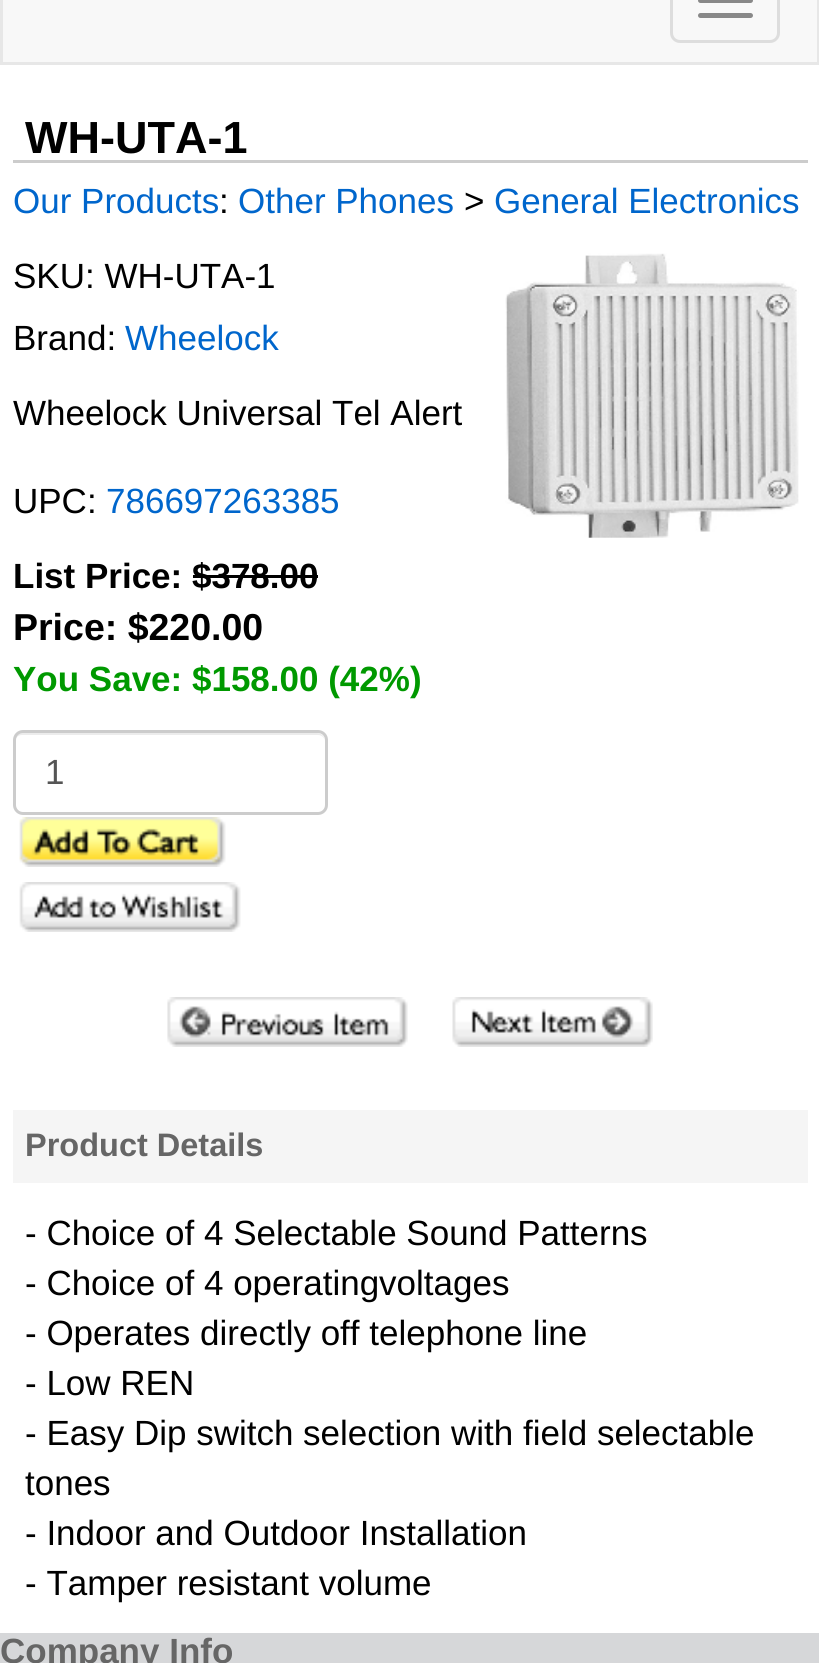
#include <cairo/cairo.h>
#include <math.h>
#include <stddef.h>


static void rounded_rect(cairo_t *cr, double x, double y, double w, double h, double r) {
  cairo_new_sub_path(cr);
  cairo_arc(cr, x + w - r, y + h - r, r, 0, M_PI / 2);
  cairo_arc(cr, x + r, y + h - r, r, M_PI / 2, M_PI);
  cairo_arc(cr, x + r, y + r, r, M_PI, 1.5 * M_PI);
  cairo_arc(cr, x + w - r, y + r, r, 1.5 * M_PI, 2 * M_PI);
  cairo_close_path(cr);
}

static void draw_image(cairo_t *cr, const char *path, double x, double y, double w, double h) {
  cairo_surface_t *image = cairo_image_surface_create_from_png(path);
  cairo_save(cr);
  cairo_set_source_surface(cr, image, x, y);
  cairo_rectangle(cr, x, y, w, h);
  cairo_fill(cr);
  cairo_restore(cr);
  cairo_surface_destroy(image);
}

static void draw(cairo_t *cr) {
  cairo_set_source_rgb(cr, 1, 1, 1);
  cairo_paint(cr);
  cairo_set_source_rgb(cr, 248 / 255.0, 248 / 255.0, 248 / 255.0);
  cairo_rectangle(cr, 1.5, -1.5, 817, 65);
  cairo_fill_preserve(cr);
  cairo_set_source_rgb(cr, 231 / 255.0, 231 / 255.0, 231 / 255.0);
  cairo_set_line_width(cr, 3);
  cairo_stroke(cr);
  rounded_rect(cr, 671.5, -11.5, 107, 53, 8.5);
  cairo_set_source_rgb(cr, 221 / 255.0, 221 / 255.0, 221 / 255.0);
  cairo_stroke(cr);
  cairo_set_source_rgb(cr, 136 / 255.0, 136 / 255.0, 136 / 255.0);
  rounded_rect(cr, 698, -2, 55, 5, 2.5);
  cairo_fill(cr);
  rounded_rect(cr, 698, 13, 55, 5, 2.5);
  cairo_fill(cr);
  cairo_set_source_rgb(cr, 204 / 255.0, 204 / 255.0, 204 / 255.0);
  cairo_rectangle(cr, 13, 160, 795, 3);
  cairo_fill(cr);
  cairo_set_source_rgb(cr, 0, 0, 0);
  cairo_rectangle(cr, 193, 575, 125, 3);
  cairo_fill(cr);
  cairo_set_source_rgb(cr, 236 / 255.0, 236 / 255.0, 236 / 255.0);
  cairo_new_path(cr);
  cairo_move_to(cr, 22, 735);
  cairo_line_to(cr, 318, 735);
  cairo_curve_to(cr, 322, 735, 325, 738, 325, 742);
  cairo_curve_to(cr, 325, 737, 322, 733, 317, 733);
  cairo_line_to(cr, 21, 733);
  cairo_curve_to(cr, 17, 734, 15, 738, 15, 742);
  cairo_curve_to(cr, 15, 738, 18, 735, 22, 735);
  cairo_close_path(cr);
  cairo_fill(cr);
  rounded_rect(cr, 14.5, 731.5, 312, 82, 8.5);
  cairo_set_source_rgb(cr, 204 / 255.0, 204 / 255.0, 204 / 255.0);
  cairo_stroke(cr);
  draw_image(cr, "images/1.png", 19, 817, 207, 50);
  draw_image(cr, "images/2.png", 19, 882, 222, 50);
  draw_image(cr, "images/3.png", 505, 253, 294, 285);
  draw_image(cr, "images/4.png", 167, 997, 241, 50);
  draw_image(cr, "images/5.png", 452, 997, 201, 50);
  cairo_set_source_rgb(cr, 245 / 255.0, 245 / 255.0, 245 / 255.0);
  cairo_rectangle(cr, 13, 1110, 795, 73);
  cairo_fill(cr);
  cairo_set_source_rgb(cr, 214 / 255.0, 215 / 255.0, 217 / 255.0);
  cairo_rectangle(cr, 0, 1633, 819, 30);
  cairo_fill(cr);
  cairo_select_font_face(cr, "Liberation Sans", CAIRO_FONT_SLANT_NORMAL, CAIRO_FONT_WEIGHT_BOLD);
  cairo_set_font_size(cr, 45);
  cairo_set_source_rgb(cr, 0, 0, 0);
  cairo_move_to(cr, 25, 153);
  cairo_show_text(cr, "WH-UTA-1");
  cairo_select_font_face(cr, "Liberation Sans", CAIRO_FONT_SLANT_NORMAL, CAIRO_FONT_WEIGHT_NORMAL);
  cairo_set_font_size(cr, 35);
  cairo_set_source_rgb(cr, 0, 102 / 255.0, 204 / 255.0);
  cairo_move_to(cr, 13, 213);
  cairo_show_text(cr, "Our Products");
  cairo_set_source_rgb(cr, 0, 0, 0);
  cairo_move_to(cr, 219, 213);
  cairo_show_text(cr, ":");
  cairo_set_source_rgb(cr, 0, 102 / 255.0, 204 / 255.0);
  cairo_move_to(cr, 238, 213);
  cairo_show_text(cr, "Other Phones");
  cairo_set_source_rgb(cr, 0, 0, 0);
  cairo_move_to(cr, 464, 213);
  cairo_show_text(cr, ">");
  cairo_set_source_rgb(cr, 0, 102 / 255.0, 204 / 255.0);
  cairo_move_to(cr, 494, 213);
  cairo_show_text(cr, "General Electronics");
  cairo_set_source_rgb(cr, 0, 0, 0);
  cairo_move_to(cr, 13, 288);
  cairo_show_text(cr, "SKU: WH-UTA-1");
  cairo_move_to(cr, 13, 350);
  cairo_show_text(cr, "Brand:");
  cairo_set_source_rgb(cr, 0, 102 / 255.0, 204 / 255.0);
  cairo_move_to(cr, 125, 350);
  cairo_show_text(cr, "Wheelock");
  cairo_set_source_rgb(cr, 0, 0, 0);
  cairo_move_to(cr, 13, 425);
  cairo_show_text(cr, "Wheelock Universal Tel Alert");
  cairo_move_to(cr, 13, 513);
  cairo_show_text(cr, "UPC:");
  cairo_set_source_rgb(cr, 0, 102 / 255.0, 204 / 255.0);
  cairo_move_to(cr, 106, 513);
  cairo_show_text(cr, "786697263385");
  cairo_select_font_face(cr, "Liberation Sans", CAIRO_FONT_SLANT_NORMAL, CAIRO_FONT_WEIGHT_BOLD);
  cairo_set_source_rgb(cr, 0, 0, 0);
  cairo_move_to(cr, 13, 588);
  cairo_show_text(cr, "List Price: $378.00");
  cairo_set_font_size(cr, 37.5);
  cairo_move_to(cr, 13, 640);
  cairo_show_text(cr, "Price: $220.00");
  cairo_set_font_size(cr, 35);
  cairo_set_source_rgb(cr, 0, 153 / 255.0, 0);
  cairo_move_to(cr, 13, 691);
  cairo_show_text(cr, "You Save: $158.00 (42%)");
  cairo_select_font_face(cr, "Liberation Sans", CAIRO_FONT_SLANT_NORMAL, CAIRO_FONT_WEIGHT_NORMAL);
  cairo_set_source_rgb(cr, 85 / 255.0, 85 / 255.0, 85 / 255.0);
  cairo_move_to(cr, 45, 784);
  cairo_show_text(cr, "1");
  cairo_select_font_face(cr, "Liberation Sans", CAIRO_FONT_SLANT_NORMAL, CAIRO_FONT_WEIGHT_BOLD);
  cairo_set_font_size(cr, 32.5);
  cairo_set_source_rgb(cr, 102 / 255.0, 102 / 255.0, 102 / 255.0);
  cairo_move_to(cr, 25, 1156);
  cairo_show_text(cr, "Product Details");
  cairo_select_font_face(cr, "Liberation Sans", CAIRO_FONT_SLANT_NORMAL, CAIRO_FONT_WEIGHT_NORMAL);
  cairo_set_font_size(cr, 35);
  cairo_set_source_rgb(cr, 0, 0, 0);
  cairo_move_to(cr, 25, 1245);
  cairo_show_text(cr, "- Choice of 4 Selectable Sound Patterns");
  cairo_move_to(cr, 25, 1295);
  cairo_show_text(cr, "- Choice of 4 operatingvoltages");
  cairo_move_to(cr, 25, 1345);
  cairo_show_text(cr, "- Operates directly off telephone line");
  cairo_move_to(cr, 25, 1395);
  cairo_show_text(cr, "- Low REN");
  cairo_move_to(cr, 25, 1445);
  cairo_show_text(cr, "- Easy Dip switch selection with field selectable");
  cairo_move_to(cr, 25, 1495);
  cairo_show_text(cr, "tones");
  cairo_move_to(cr, 25, 1545);
  cairo_show_text(cr, "- Indoor and Outdoor Installation");
  cairo_move_to(cr, 25, 1595);
  cairo_show_text(cr, "- Tamper resistant volume");
  cairo_select_font_face(cr, "Liberation Sans", CAIRO_FONT_SLANT_NORMAL, CAIRO_FONT_WEIGHT_BOLD);
  cairo_set_source_rgb(cr, 102 / 255.0, 102 / 255.0, 102 / 255.0);
  cairo_move_to(cr, 0, 1663);
  cairo_show_text(cr, "Company Info");
}

int main(void) {
  cairo_surface_t *surface = cairo_image_surface_create(CAIRO_FORMAT_RGB24, 819, 1663);
  cairo_t *cr = cairo_create(surface);
  cairo_font_options_t *options = cairo_font_options_create();
  cairo_font_options_set_hint_metrics(options, CAIRO_HINT_METRICS_OFF);
  cairo_font_options_set_hint_style(options, CAIRO_HINT_STYLE_NONE);
  cairo_set_font_options(cr, options);
  cairo_set_miter_limit(cr, 4);
  draw(cr);
  cairo_surface_write_to_png(surface, "out.png");
  cairo_font_options_destroy(options);
  cairo_destroy(cr);
  cairo_surface_destroy(surface);
  return 0;
}
